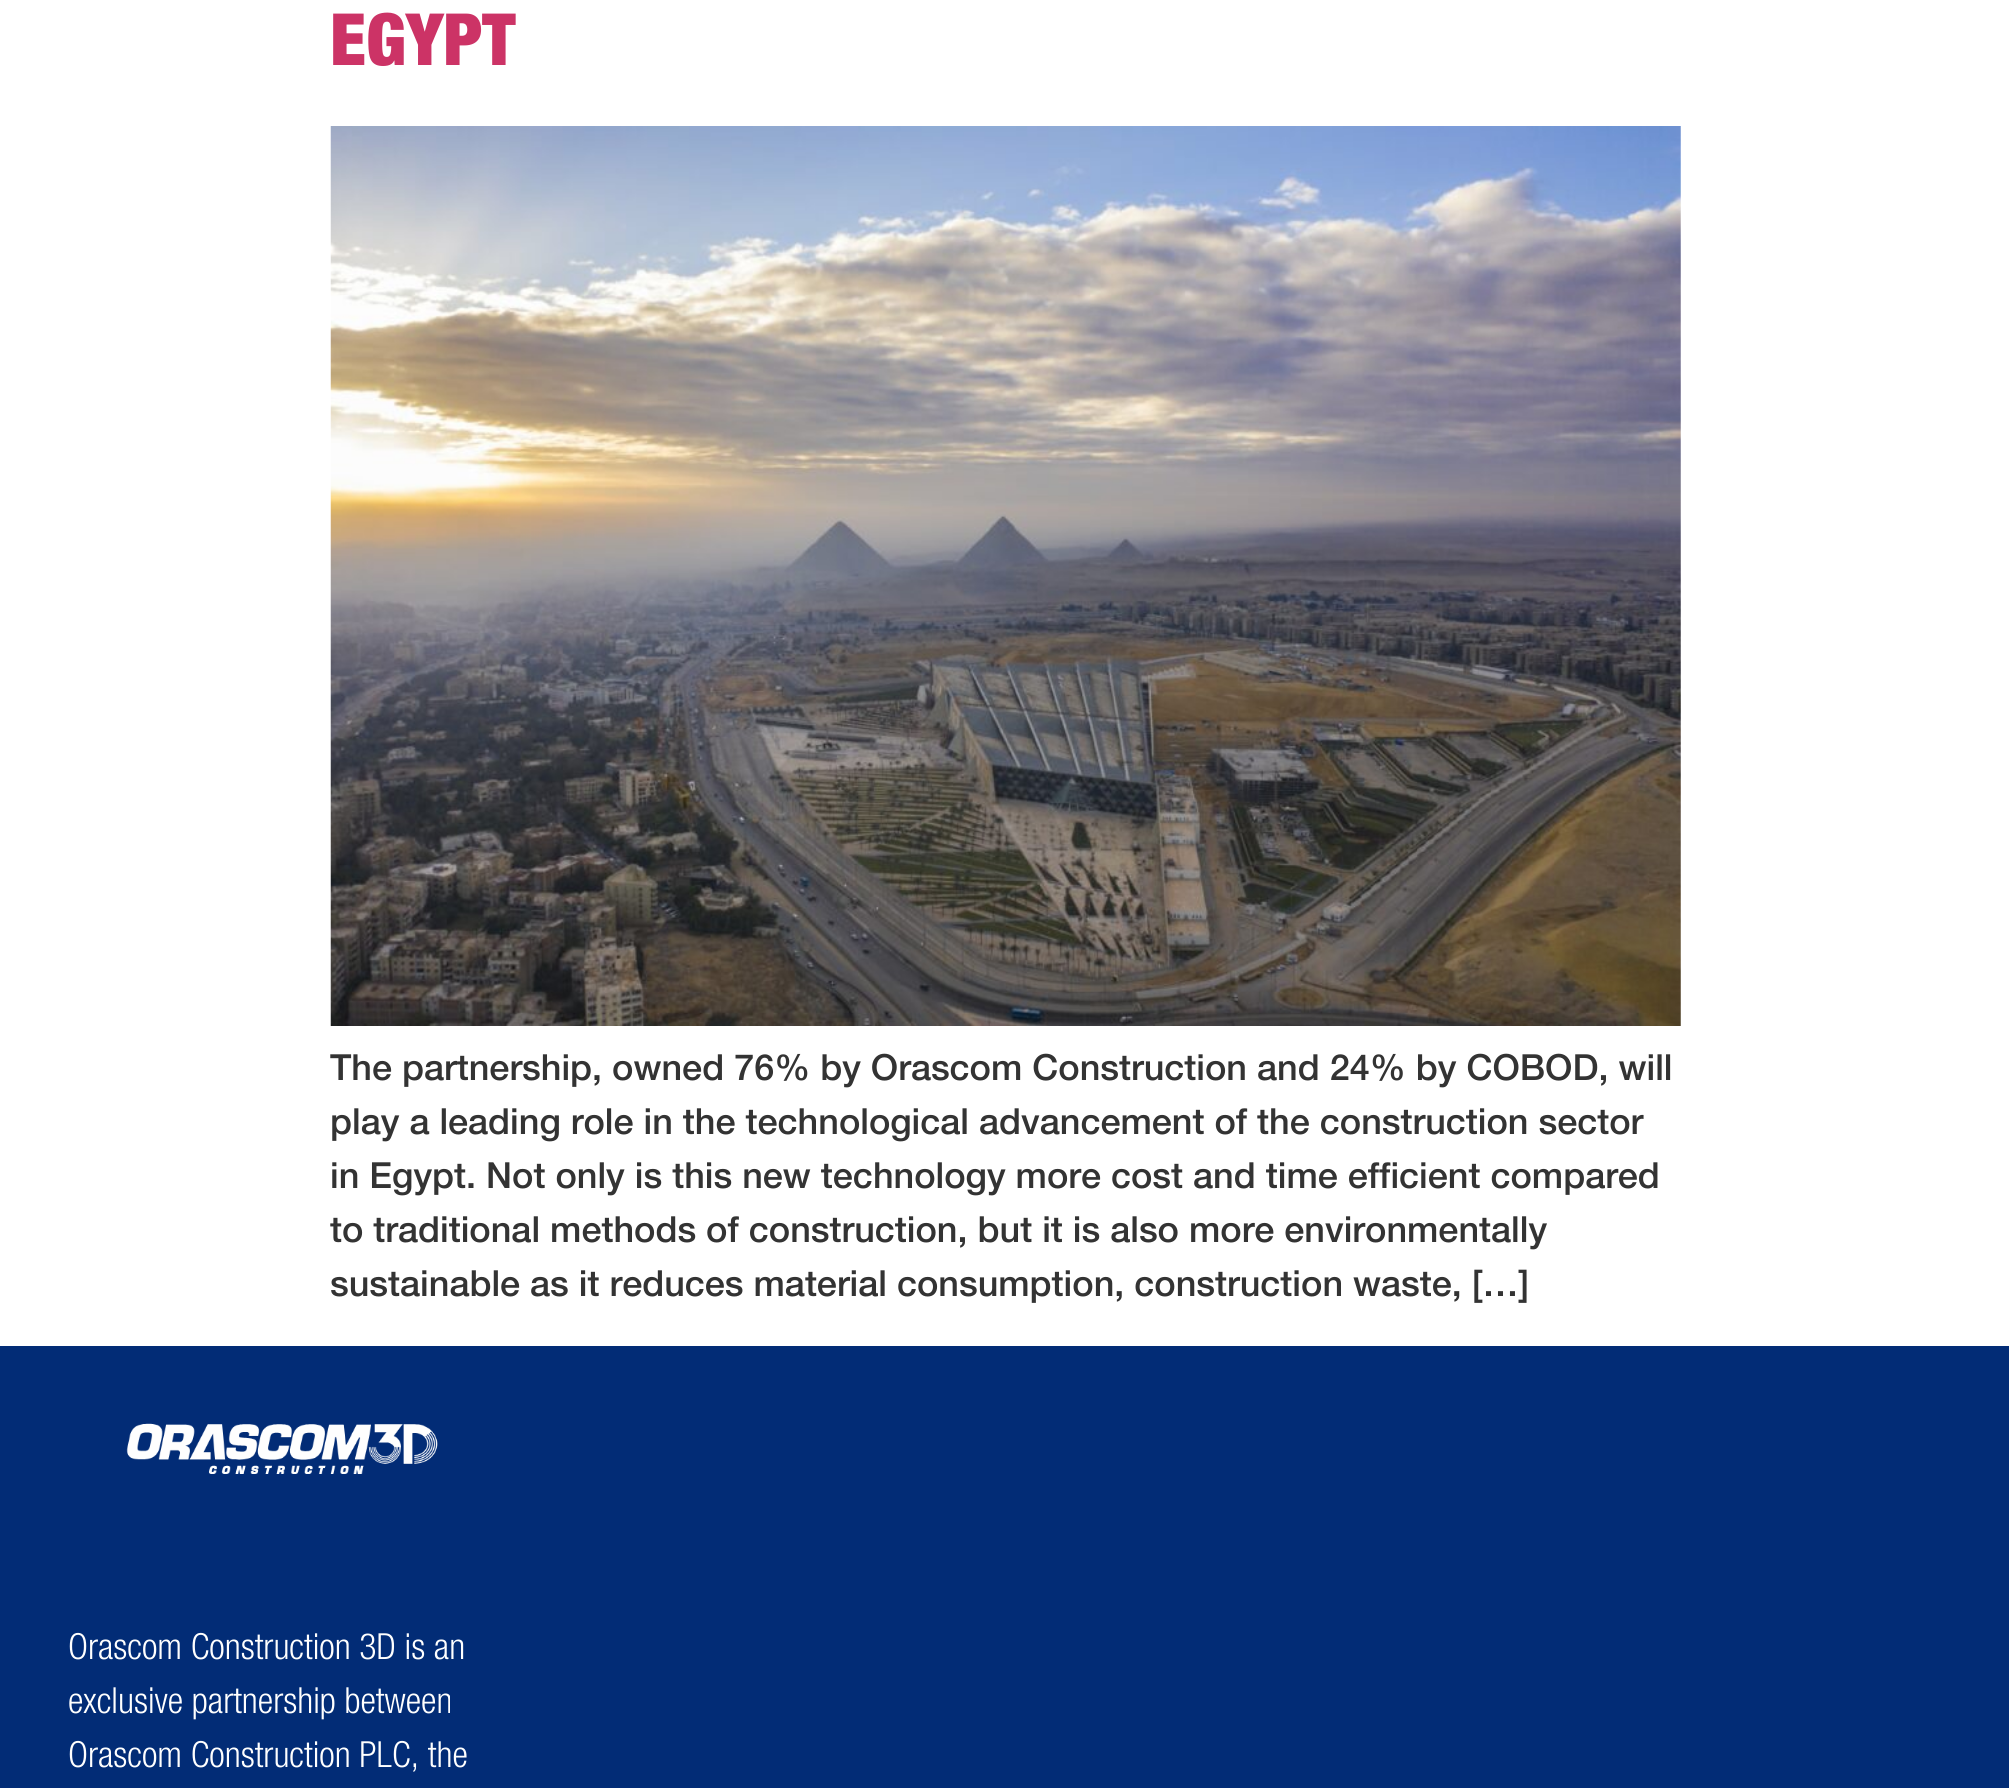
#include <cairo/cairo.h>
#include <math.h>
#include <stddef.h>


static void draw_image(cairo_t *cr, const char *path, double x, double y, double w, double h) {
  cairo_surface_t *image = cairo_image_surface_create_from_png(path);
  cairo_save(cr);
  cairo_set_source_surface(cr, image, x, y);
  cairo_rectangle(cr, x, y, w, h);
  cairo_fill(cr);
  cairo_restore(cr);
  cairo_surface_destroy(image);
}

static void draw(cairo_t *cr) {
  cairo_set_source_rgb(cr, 1, 1, 1);
  cairo_paint(cr);
  draw_image(cr, "images/1.png", 330, 126, 1351, 900);
  cairo_set_source_rgb(cr, 2 / 255.0, 44 / 255.0, 118 / 255.0);
  cairo_rectangle(cr, 0, 1346, 2009, 442);
  cairo_fill(cr);
  draw_image(cr, "images/2.png", 126, 1423, 312, 51);
  cairo_select_font_face(cr, "Helvetica Neue Black", CAIRO_FONT_SLANT_NORMAL, CAIRO_FONT_WEIGHT_NORMAL);
  cairo_set_font_size(cr, 72);
  cairo_set_source_rgb(cr, 204 / 255.0, 51 / 255.0, 102 / 255.0);
  cairo_move_to(cr, 330, 65);
  cairo_show_text(cr, "EGYPT");
  cairo_select_font_face(cr, "Helvetica Neue Medium", CAIRO_FONT_SLANT_NORMAL, CAIRO_FONT_WEIGHT_NORMAL);
  cairo_set_font_size(cr, 36);
  cairo_set_source_rgb(cr, 51 / 255.0, 51 / 255.0, 51 / 255.0);
  cairo_move_to(cr, 330, 1080);
  cairo_show_text(cr, "The partnership, owned 76% by Orascom Construction and 24% by COBOD, will");
  cairo_move_to(cr, 330, 1134);
  cairo_show_text(cr, "play a leading role in the technological advancement of the construction sector");
  cairo_move_to(cr, 330, 1188);
  cairo_show_text(cr, "in Egypt. Not only is this new technology more cost and time efficient compared");
  cairo_move_to(cr, 330, 1242);
  cairo_show_text(cr, "to traditional methods of construction, but it is also more environmentally");
  cairo_move_to(cr, 330, 1296);
  cairo_show_text(cr, "sustainable as it reduces material consumption, construction waste, […]");
  cairo_select_font_face(cr, "Helvetica Neue Light", CAIRO_FONT_SLANT_NORMAL, CAIRO_FONT_WEIGHT_NORMAL);
  cairo_set_source_rgb(cr, 1, 1, 1);
  cairo_move_to(cr, 68, 1659);
  cairo_show_text(cr, "Orascom Construction 3D is an");
  cairo_move_to(cr, 68, 1713);
  cairo_show_text(cr, "exclusive partnership between");
  cairo_move_to(cr, 68, 1767);
  cairo_show_text(cr, "Orascom Construction PLC, the");
}

int main(void) {
  cairo_surface_t *surface = cairo_image_surface_create(CAIRO_FORMAT_RGB24, 2009, 1788);
  cairo_t *cr = cairo_create(surface);
  cairo_font_options_t *options = cairo_font_options_create();
  cairo_font_options_set_hint_metrics(options, CAIRO_HINT_METRICS_OFF);
  cairo_font_options_set_hint_style(options, CAIRO_HINT_STYLE_NONE);
  cairo_set_font_options(cr, options);
  cairo_set_miter_limit(cr, 4);
  draw(cr);
  cairo_surface_write_to_png(surface, "out.png");
  cairo_font_options_destroy(options);
  cairo_destroy(cr);
  cairo_surface_destroy(surface);
  return 0;
}
